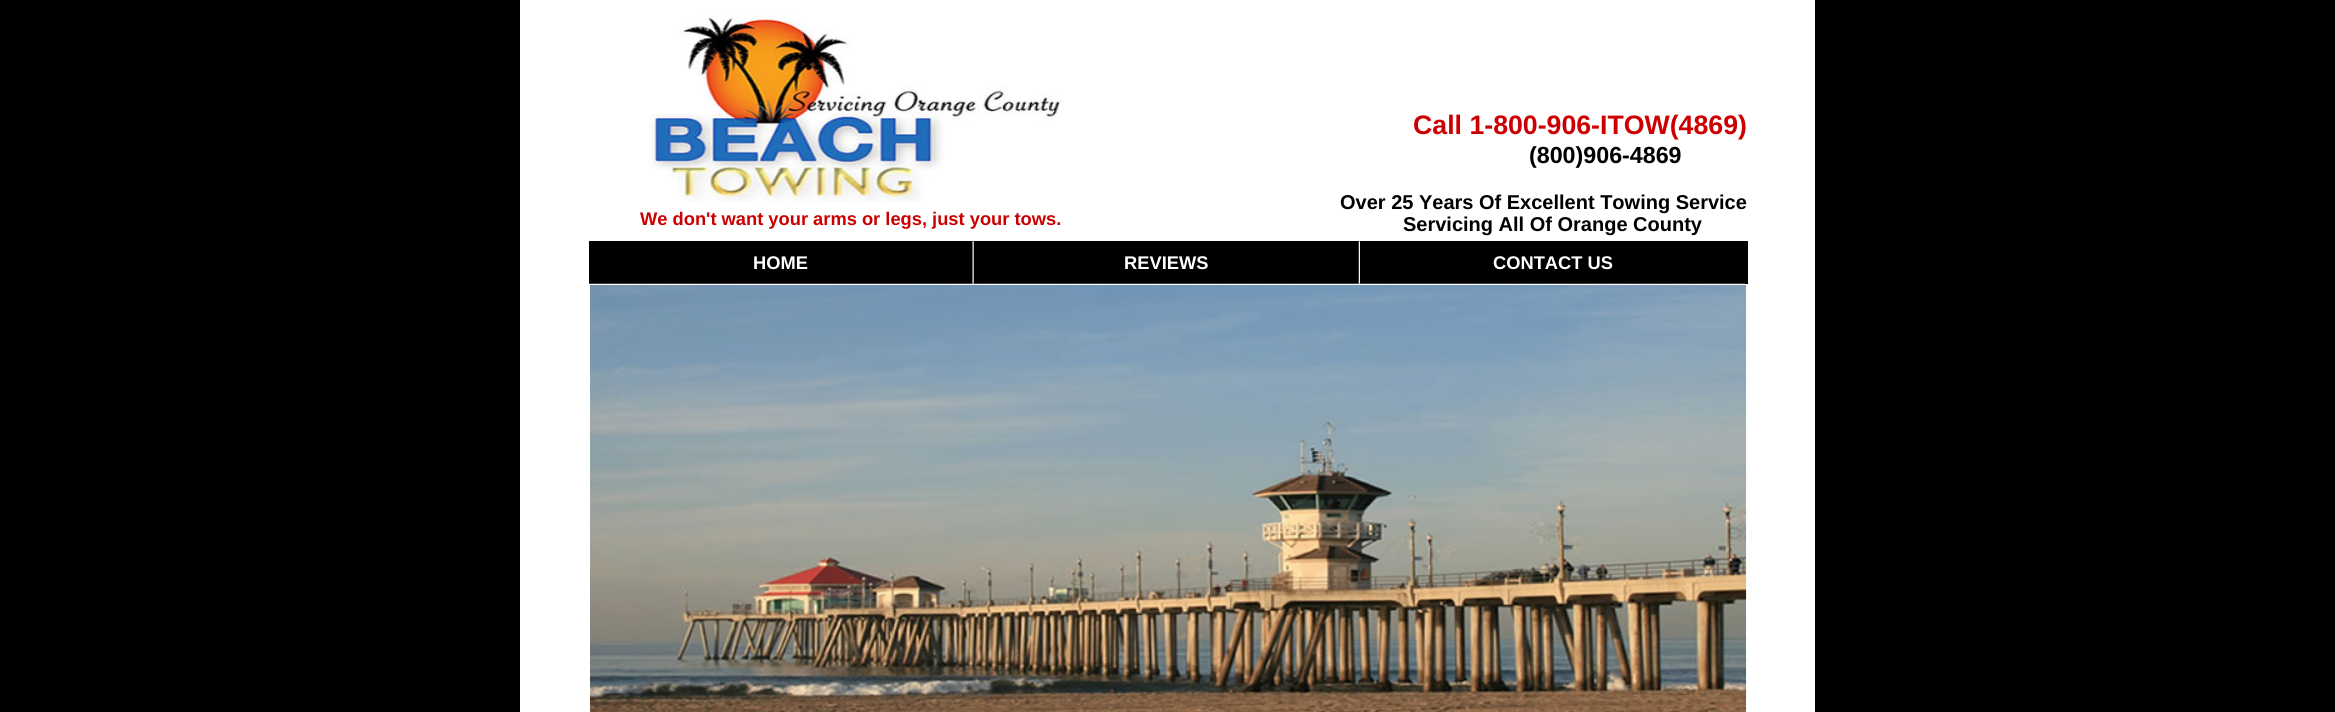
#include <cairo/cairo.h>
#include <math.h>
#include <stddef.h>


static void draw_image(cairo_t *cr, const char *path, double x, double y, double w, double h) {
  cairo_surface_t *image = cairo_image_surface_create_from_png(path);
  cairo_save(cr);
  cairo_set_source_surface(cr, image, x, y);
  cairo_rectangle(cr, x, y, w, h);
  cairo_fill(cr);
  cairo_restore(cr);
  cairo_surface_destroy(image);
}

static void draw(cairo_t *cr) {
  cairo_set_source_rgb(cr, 0, 0, 0);
  cairo_paint(cr);
  cairo_set_source_rgb(cr, 1, 1, 1);
  cairo_rectangle(cr, 520, 0, 1295, 712);
  cairo_fill(cr);
  draw_image(cr, "images/1.png", 649, 15, 415, 187);
  cairo_set_source_rgb(cr, 0, 0, 0);
  cairo_rectangle(cr, 589, 241, 1159, 43);
  cairo_fill(cr);
  draw_image(cr, "images/2.png", 972, 241, 2, 43);
  draw_image(cr, "images/3.png", 1358, 241, 2, 43);
  draw_image(cr, "images/4.png", 589, 283, 1156, 1);
  draw_image(cr, "images/5.png", 590, 285, 1157, 427);
  cairo_select_font_face(cr, "Liberation Sans", CAIRO_FONT_SLANT_NORMAL, CAIRO_FONT_WEIGHT_BOLD);
  cairo_set_font_size(cr, 18.3);
  cairo_set_source_rgb(cr, 204 / 255.0, 0, 0);
  cairo_move_to(cr, 640, 225);
  cairo_show_text(cr, "We don't want your arms or legs, just your tows.");
  cairo_set_font_size(cr, 26.7);
  cairo_move_to(cr, 1413, 134);
  cairo_show_text(cr, "Call 1-800-906-ITOW(4869)");
  cairo_set_font_size(cr, 23.25);
  cairo_set_source_rgb(cr, 0, 0, 0);
  cairo_move_to(cr, 1529, 163);
  cairo_show_text(cr, "(800)906-4869");
  cairo_set_font_size(cr, 20);
  cairo_move_to(cr, 1340, 209);
  cairo_show_text(cr, "Over 25 Years Of Excellent Towing Service");
  cairo_move_to(cr, 1403, 231);
  cairo_show_text(cr, "Servicing All Of Orange County");
  cairo_set_font_size(cr, 18.3);
  cairo_set_source_rgb(cr, 1, 1, 1);
  cairo_move_to(cr, 753, 269);
  cairo_show_text(cr, "HOME");
  cairo_move_to(cr, 1124, 269);
  cairo_show_text(cr, "REVIEWS");
  cairo_move_to(cr, 1493, 269);
  cairo_show_text(cr, "CONTACT US");
}

int main(void) {
  cairo_surface_t *surface = cairo_image_surface_create(CAIRO_FORMAT_RGB24, 2335, 712);
  cairo_t *cr = cairo_create(surface);
  cairo_font_options_t *options = cairo_font_options_create();
  cairo_font_options_set_hint_metrics(options, CAIRO_HINT_METRICS_OFF);
  cairo_font_options_set_hint_style(options, CAIRO_HINT_STYLE_NONE);
  cairo_set_font_options(cr, options);
  cairo_set_miter_limit(cr, 4);
  draw(cr);
  cairo_surface_write_to_png(surface, "out.png");
  cairo_font_options_destroy(options);
  cairo_destroy(cr);
  cairo_surface_destroy(surface);
  return 0;
}
